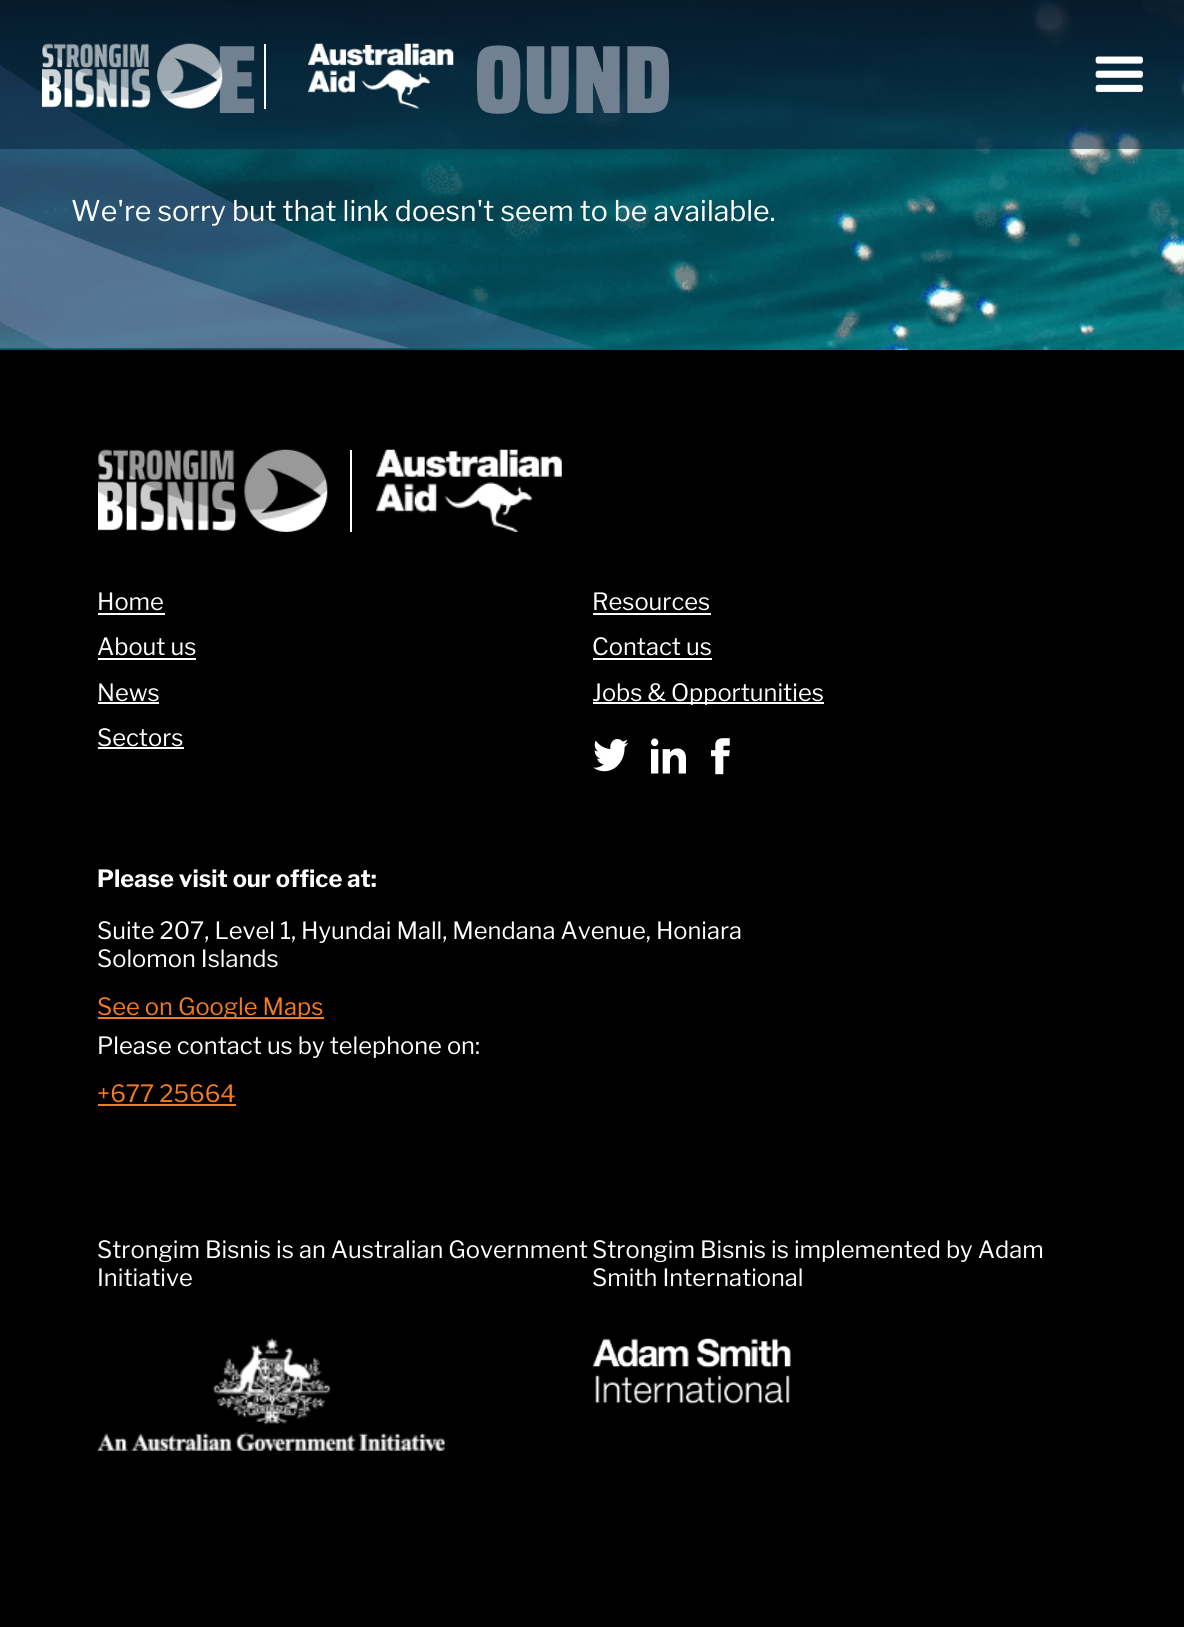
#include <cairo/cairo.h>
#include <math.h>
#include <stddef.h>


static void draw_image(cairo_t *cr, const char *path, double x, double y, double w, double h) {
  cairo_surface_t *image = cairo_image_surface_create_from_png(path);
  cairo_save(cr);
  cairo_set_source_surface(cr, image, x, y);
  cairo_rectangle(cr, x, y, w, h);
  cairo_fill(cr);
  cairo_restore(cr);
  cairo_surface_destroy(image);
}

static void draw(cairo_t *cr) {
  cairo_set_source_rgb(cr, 1, 1, 1);
  cairo_paint(cr);
  draw_image(cr, "images/1.png", 0, 0, 1184, 350);
  cairo_set_source_rgb(cr, 0, 0, 0);
  cairo_rectangle(cr, 0, 350, 1184, 1277);
  cairo_fill(cr);
  draw_image(cr, "images/5.png", 98, 449, 230, 83);
  cairo_set_source_rgb(cr, 1, 1, 1);
  cairo_rectangle(cr, 350, 450, 2, 82);
  cairo_fill(cr);
  draw_image(cr, "images/6.png", 376, 449, 186, 83);
  cairo_rectangle(cr, 98, 613, 67, 2);
  cairo_fill(cr);
  cairo_rectangle(cr, 98, 658, 98, 2);
  cairo_fill(cr);
  cairo_rectangle(cr, 98, 702, 61, 2);
  cairo_fill(cr);
  cairo_rectangle(cr, 98, 747, 86, 2);
  cairo_fill(cr);
  cairo_rectangle(cr, 593, 613, 118, 2);
  cairo_fill(cr);
  cairo_rectangle(cr, 593, 658, 119, 2);
  cairo_fill(cr);
  cairo_rectangle(cr, 593, 702, 231, 2);
  cairo_fill(cr);
  draw_image(cr, "images/7.png", 593, 739, 35, 33);
  draw_image(cr, "images/8.png", 651, 738, 35, 36);
  draw_image(cr, "images/9.png", 711, 738, 19, 37);
  cairo_set_source_rgb(cr, 244 / 255.0, 124 / 255.0, 32 / 255.0);
  cairo_rectangle(cr, 98, 1017, 226, 2);
  cairo_fill(cr);
  cairo_rectangle(cr, 98, 1104, 138, 2);
  cairo_fill(cr);
  draw_image(cr, "images/10.png", 98, 1338, 347, 113);
  draw_image(cr, "images/11.png", 593, 1338, 198, 66);
  cairo_select_font_face(cr, "Saira Condensed Black", CAIRO_FONT_SLANT_NORMAL, CAIRO_FONT_WEIGHT_NORMAL);
  cairo_set_font_size(cr, 97);
  cairo_set_source_rgb(cr, 1, 1, 1);
  cairo_move_to(cr, 216, 113);
  cairo_show_text(cr, "E");
  cairo_move_to(cr, 474, 113);
  cairo_show_text(cr, "OUND");
  cairo_set_source_rgba(cr, 11 / 255.0, 39 / 255.0, 66 / 255.0, 0.58);
  cairo_rectangle(cr, 0, 0, 1184, 149);
  cairo_fill(cr);
  draw_image(cr, "images/4.png", 1095, 56, 48, 36);
  draw_image(cr, "images/3.png", 308, 43, 146, 66);
  cairo_set_source_rgb(cr, 1, 1, 1);
  cairo_rectangle(cr, 264, 44, 2, 65);
  cairo_fill(cr);
  draw_image(cr, "images/2.png", 42, 43, 181, 66);
  cairo_select_font_face(cr, "Libre Franklin", CAIRO_FONT_SLANT_NORMAL, CAIRO_FONT_WEIGHT_NORMAL);
  cairo_set_font_size(cr, 28.4);
  cairo_move_to(cr, 71, 221);
  cairo_show_text(cr, "We're sorry but that link doesn't seem to be available.");
  cairo_set_font_size(cr, 23.7);
  cairo_move_to(cr, 97, 610);
  cairo_show_text(cr, "Home");
  cairo_move_to(cr, 97, 655);
  cairo_show_text(cr, "About us");
  cairo_move_to(cr, 97, 701);
  cairo_show_text(cr, "News");
  cairo_move_to(cr, 97, 746);
  cairo_show_text(cr, "Sectors");
  cairo_move_to(cr, 592, 610);
  cairo_show_text(cr, "Resources");
  cairo_move_to(cr, 592, 655);
  cairo_show_text(cr, "Contact us");
  cairo_move_to(cr, 592, 701);
  cairo_show_text(cr, "Jobs & Opportunities");
  cairo_select_font_face(cr, "Libre Franklin", CAIRO_FONT_SLANT_NORMAL, CAIRO_FONT_WEIGHT_BOLD);
  cairo_move_to(cr, 97, 887);
  cairo_show_text(cr, "Please visit our office at:");
  cairo_select_font_face(cr, "Libre Franklin", CAIRO_FONT_SLANT_NORMAL, CAIRO_FONT_WEIGHT_NORMAL);
  cairo_move_to(cr, 97, 939);
  cairo_show_text(cr, "Suite 207, Level 1, Hyundai Mall, Mendana Avenue, Honiara");
  cairo_move_to(cr, 97, 967);
  cairo_show_text(cr, "Solomon Islands");
  cairo_set_source_rgb(cr, 244 / 255.0, 124 / 255.0, 32 / 255.0);
  cairo_move_to(cr, 97, 1015);
  cairo_show_text(cr, "See on Google Maps");
  cairo_set_source_rgb(cr, 1, 1, 1);
  cairo_move_to(cr, 97, 1054);
  cairo_show_text(cr, "Please contact us by telephone on:");
  cairo_set_source_rgb(cr, 244 / 255.0, 124 / 255.0, 32 / 255.0);
  cairo_move_to(cr, 97, 1102);
  cairo_show_text(cr, "+677 25664");
  cairo_set_source_rgb(cr, 1, 1, 1);
  cairo_move_to(cr, 97, 1258);
  cairo_show_text(cr, "Strongim Bisnis is an Australian Government");
  cairo_move_to(cr, 97, 1286);
  cairo_show_text(cr, "Initiative");
  cairo_move_to(cr, 592, 1258);
  cairo_show_text(cr, "Strongim Bisnis is implemented by Adam");
  cairo_move_to(cr, 592, 1286);
  cairo_show_text(cr, "Smith International");
}

int main(void) {
  cairo_surface_t *surface = cairo_image_surface_create(CAIRO_FORMAT_RGB24, 1184, 1627);
  cairo_t *cr = cairo_create(surface);
  cairo_font_options_t *options = cairo_font_options_create();
  cairo_font_options_set_hint_metrics(options, CAIRO_HINT_METRICS_OFF);
  cairo_font_options_set_hint_style(options, CAIRO_HINT_STYLE_NONE);
  cairo_set_font_options(cr, options);
  cairo_set_miter_limit(cr, 4);
  draw(cr);
  cairo_surface_write_to_png(surface, "out.png");
  cairo_font_options_destroy(options);
  cairo_destroy(cr);
  cairo_surface_destroy(surface);
  return 0;
}
